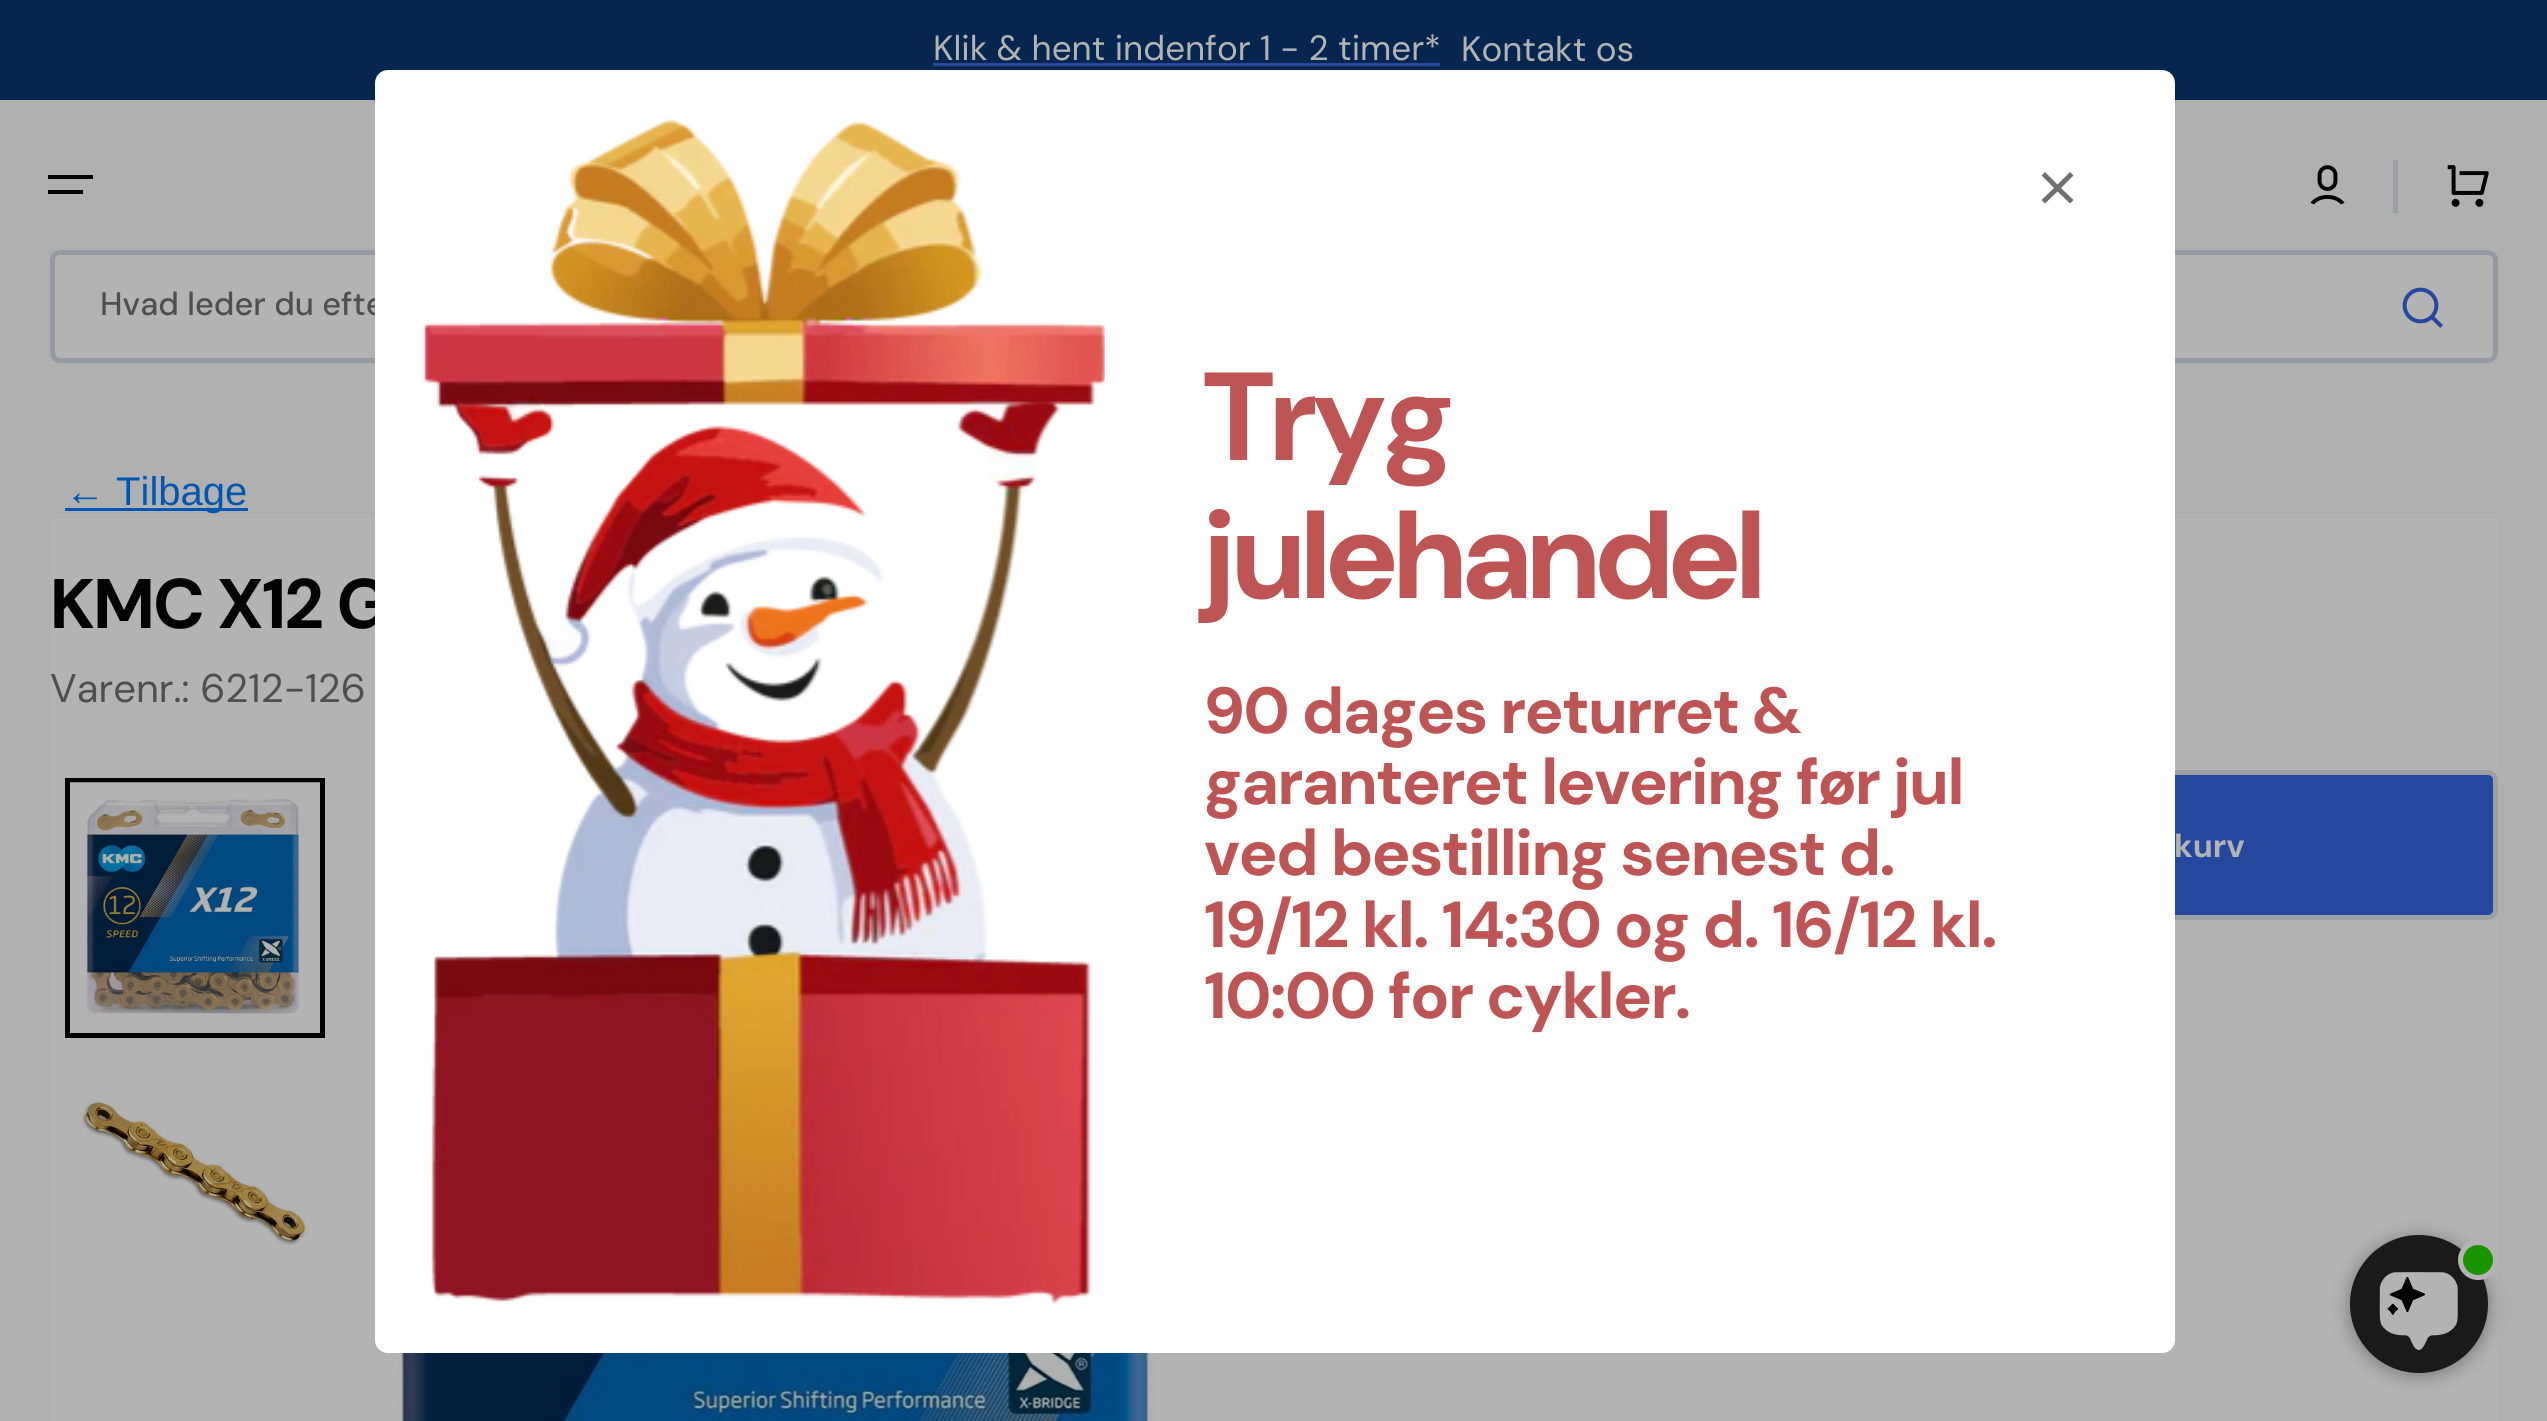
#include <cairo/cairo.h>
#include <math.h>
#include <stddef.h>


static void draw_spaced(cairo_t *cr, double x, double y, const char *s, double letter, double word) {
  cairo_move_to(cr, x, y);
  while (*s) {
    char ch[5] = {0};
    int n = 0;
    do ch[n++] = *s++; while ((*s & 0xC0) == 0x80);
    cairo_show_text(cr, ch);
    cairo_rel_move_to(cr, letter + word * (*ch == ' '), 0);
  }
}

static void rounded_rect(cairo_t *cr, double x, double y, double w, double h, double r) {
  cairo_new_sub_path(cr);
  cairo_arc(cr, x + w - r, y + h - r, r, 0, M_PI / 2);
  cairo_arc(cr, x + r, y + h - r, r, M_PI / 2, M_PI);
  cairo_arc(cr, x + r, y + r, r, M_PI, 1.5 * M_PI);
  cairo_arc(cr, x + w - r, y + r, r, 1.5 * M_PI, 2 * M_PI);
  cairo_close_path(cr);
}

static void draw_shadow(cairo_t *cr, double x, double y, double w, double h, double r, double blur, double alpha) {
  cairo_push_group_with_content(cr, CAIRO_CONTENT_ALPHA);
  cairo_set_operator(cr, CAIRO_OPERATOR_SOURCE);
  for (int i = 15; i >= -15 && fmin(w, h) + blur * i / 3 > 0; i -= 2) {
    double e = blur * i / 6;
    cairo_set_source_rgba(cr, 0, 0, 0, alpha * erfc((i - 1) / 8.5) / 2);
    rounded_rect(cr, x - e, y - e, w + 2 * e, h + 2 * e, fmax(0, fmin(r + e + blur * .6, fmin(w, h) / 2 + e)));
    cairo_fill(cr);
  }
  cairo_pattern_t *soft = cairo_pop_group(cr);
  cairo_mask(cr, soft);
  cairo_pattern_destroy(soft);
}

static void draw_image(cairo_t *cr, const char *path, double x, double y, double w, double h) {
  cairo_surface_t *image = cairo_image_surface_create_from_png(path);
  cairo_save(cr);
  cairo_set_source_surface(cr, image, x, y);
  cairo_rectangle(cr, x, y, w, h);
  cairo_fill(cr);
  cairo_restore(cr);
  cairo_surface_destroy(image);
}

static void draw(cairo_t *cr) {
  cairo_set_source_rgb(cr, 176 / 255.0, 176 / 255.0, 176 / 255.0);
  cairo_paint(cr);
  cairo_set_source_rgb(cr, 7 / 255.0, 38 / 255.0, 79 / 255.0);
  cairo_rectangle(cr, 0, 0, 2547, 100);
  cairo_fill(cr);
  cairo_set_source_rgb(cr, 37 / 255.0, 71 / 255.0, 157 / 255.0);
  cairo_rectangle(cr, 933, 63, 507, 3);
  cairo_fill(cr);
  cairo_set_source_rgb(cr, 3 / 255.0, 3 / 255.0, 3 / 255.0);
  cairo_rectangle(cr, 48, 175, 45, 4);
  cairo_fill(cr);
  cairo_rectangle(cr, 48, 190, 35, 4);
  cairo_fill(cr);
  draw_image(cr, "images/1.png", 2310, 165, 35, 40);
  cairo_set_source_rgb(cr, 157 / 255.0, 159 / 255.0, 167 / 255.0);
  cairo_rectangle(cr, 2393, 160, 5, 53);
  cairo_fill(cr);
  draw_image(cr, "images/2.png", 2447, 165, 42, 42);
  cairo_set_source_rgb(cr, 179 / 255.0, 179 / 255.0, 179 / 255.0);
  rounded_rect(cr, 52.5, 252.5, 2443, 108, 7.5);
  cairo_fill_preserve(cr);
  cairo_set_source_rgb(cr, 149 / 255.0, 154 / 255.0, 162 / 255.0);
  cairo_set_line_width(cr, 5);
  cairo_stroke(cr);
  draw_image(cr, "images/3.png", 2402, 287, 41, 41);
  cairo_set_source_rgb(cr, 0, 86 / 255.0, 179 / 255.0);
  cairo_rectangle(cr, 65, 508, 183, 3);
  cairo_fill(cr);
  cairo_set_source_rgb(cr, 179 / 255.0, 179 / 255.0, 179 / 255.0);
  cairo_rectangle(cr, 50, 518, 2448, 903);
  cairo_fill(cr);
  cairo_rectangle(cr, 67.5, 780.5, 255, 255);
  cairo_set_source_rgb(cr, 0, 0, 0);
  cairo_stroke(cr);
  draw_image(cr, "images/5.png", 70, 783, 250, 232);
  cairo_set_source_rgb(cr, 134 / 255.0, 134 / 255.0, 134 / 255.0);
  cairo_rectangle(cr, 70, 782, 250, 1);
  cairo_fill(cr);
  draw_image(cr, "images/6.png", 82, 1101, 225, 144);
  draw_image(cr, "images/7.png", 398, 1353, 757, 68);
  draw_image(cr, "images/8.png", 402, 1353, 746, 68);
  cairo_set_source_rgb(cr, 37 / 255.0, 71 / 255.0, 157 / 255.0);
  rounded_rect(cr, 1705.5, 772.5, 790, 145, 7.5);
  cairo_fill_preserve(cr);
  cairo_set_source_rgb(cr, 157 / 255.0, 159 / 255.0, 167 / 255.0);
  cairo_stroke(cr);
  cairo_set_source_rgb(cr, 0, 0, 0);
  draw_shadow(cr, 2350, 1238, 138, 137, 68.5, 9, 0.35);
  cairo_set_source_rgb(cr, 26 / 255.0, 26 / 255.0, 26 / 255.0);
  cairo_arc(cr, 2419, 1304, 69, 0, 2 * M_PI);
  cairo_fill(cr);
  cairo_set_source_rgb(cr, 26 / 255.0, 148 / 255.0, 0);
  cairo_arc(cr, 2478, 1260, 17.5, 0, 2 * M_PI);
  cairo_fill_preserve(cr);
  cairo_set_source_rgb(cr, 179 / 255.0, 179 / 255.0, 179 / 255.0);
  cairo_stroke(cr);
  draw_image(cr, "images/9.png", 2379, 1272, 79, 78);
  cairo_select_font_face(cr, "DM Sans", CAIRO_FONT_SLANT_NORMAL, CAIRO_FONT_WEIGHT_NORMAL);
  cairo_set_font_size(cr, 35);
  cairo_move_to(cr, 933, 60);
  cairo_show_text(cr, "Klik & hent indenfor 1 - 2 timer*");
  cairo_move_to(cr, 1461, 61);
  cairo_show_text(cr, "Kontakt os");
  cairo_select_font_face(cr, "DM Sans Medium", CAIRO_FONT_SLANT_NORMAL, CAIRO_FONT_WEIGHT_NORMAL);
  cairo_set_font_size(cr, 32.5);
  cairo_set_source_rgb(cr, 79 / 255.0, 79 / 255.0, 79 / 255.0);
  cairo_move_to(cr, 100, 315);
  cairo_show_text(cr, "Hvad leder du efte");
  cairo_select_font_face(cr, "Liberation Sans", CAIRO_FONT_SLANT_NORMAL, CAIRO_FONT_WEIGHT_NORMAL);
  cairo_set_font_size(cr, 40);
  cairo_set_source_rgb(cr, 0, 86 / 255.0, 179 / 255.0);
  cairo_move_to(cr, 65, 505);
  cairo_show_text(cr, "← Tilbage");
  cairo_select_font_face(cr, "DM Sans", CAIRO_FONT_SLANT_NORMAL, CAIRO_FONT_WEIGHT_BOLD);
  cairo_set_font_size(cr, 70);
  cairo_set_source_rgb(cr, 3 / 255.0, 3 / 255.0, 3 / 255.0);
  draw_spaced(cr, 50, 628, "KMC X12 G", -1.5, 0);
  cairo_set_source_rgb(cr, 1, 1, 1);
  rounded_rect(cr, 375, 70, 1800, 1283, 13);
  cairo_fill(cr);
  cairo_set_source_rgb(cr, 113 / 255.0, 113 / 255.0, 113 / 255.0);
  cairo_new_path(cr);
  cairo_move_to(cr, 2057.5, 184.5);
  cairo_line_to(cr, 2070, 172);
  cairo_line_to(cr, 2073.5, 175.5);
  cairo_line_to(cr, 2061, 188);
  cairo_line_to(cr, 2073.5, 200);
  cairo_line_to(cr, 2070, 203.5);
  cairo_line_to(cr, 2057.5, 191.5);
  cairo_line_to(cr, 2045, 203.5);
  cairo_line_to(cr, 2041.5, 200);
  cairo_line_to(cr, 2054, 188);
  cairo_line_to(cr, 2041.5, 175.5);
  cairo_line_to(cr, 2045, 172);
  cairo_close_path(cr);
  cairo_fill(cr);
  cairo_select_font_face(cr, "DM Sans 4", CAIRO_FONT_SLANT_NORMAL, CAIRO_FONT_WEIGHT_BOLD);
  cairo_set_font_size(cr, 65);
  cairo_set_source_rgb(cr, 191 / 255.0, 84 / 255.0, 84 / 255.0);
  draw_spaced(cr, 1204, 1018, "10:00 for cykler.", -1.3, 0);
  draw_spaced(cr, 1204, 947, "19/12 kl. 14:30 og d. 16/12 kl.", -1.3, 0);
  draw_spaced(cr, 1204, 875, "ved bestilling senest d.", -1.3, 0);
  draw_spaced(cr, 1204, 804, "garanteret levering før jul", -1.3, 0);
  draw_spaced(cr, 1204, 733, "90 dages returret &", -1.3, 0);
  cairo_select_font_face(cr, "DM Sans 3", CAIRO_FONT_SLANT_NORMAL, CAIRO_FONT_WEIGHT_BOLD);
  cairo_set_font_size(cr, 125);
  draw_spaced(cr, 1204, 598, "julehandel", -2.5, 0);
  draw_spaced(cr, 1204, 460, "Tryg", -2.5, 0);
  draw_image(cr, "images/4.png", 424, 119, 681, 1185);
  cairo_select_font_face(cr, "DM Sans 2", CAIRO_FONT_SLANT_NORMAL, CAIRO_FONT_WEIGHT_NORMAL);
  cairo_set_font_size(cr, 40);
  cairo_set_source_rgb(cr, 79 / 255.0, 79 / 255.0, 79 / 255.0);
  cairo_move_to(cr, 50, 702);
  cairo_show_text(cr, "Varenr.: 6212-126");
  cairo_select_font_face(cr, "DM Sans 2", CAIRO_FONT_SLANT_NORMAL, CAIRO_FONT_WEIGHT_BOLD);
  cairo_set_font_size(cr, 32.5);
  cairo_set_source_rgb(cr, 179 / 255.0, 179 / 255.0, 179 / 255.0);
  cairo_move_to(cr, 2174, 857);
  cairo_show_text(cr, "kurv");
}

int main(void) {
  cairo_surface_t *surface = cairo_image_surface_create(CAIRO_FORMAT_RGB24, 2547, 1421);
  cairo_t *cr = cairo_create(surface);
  cairo_font_options_t *options = cairo_font_options_create();
  cairo_font_options_set_hint_metrics(options, CAIRO_HINT_METRICS_OFF);
  cairo_font_options_set_hint_style(options, CAIRO_HINT_STYLE_NONE);
  cairo_set_font_options(cr, options);
  cairo_set_miter_limit(cr, 4);
  draw(cr);
  cairo_surface_write_to_png(surface, "out.png");
  cairo_font_options_destroy(options);
  cairo_destroy(cr);
  cairo_surface_destroy(surface);
  return 0;
}
